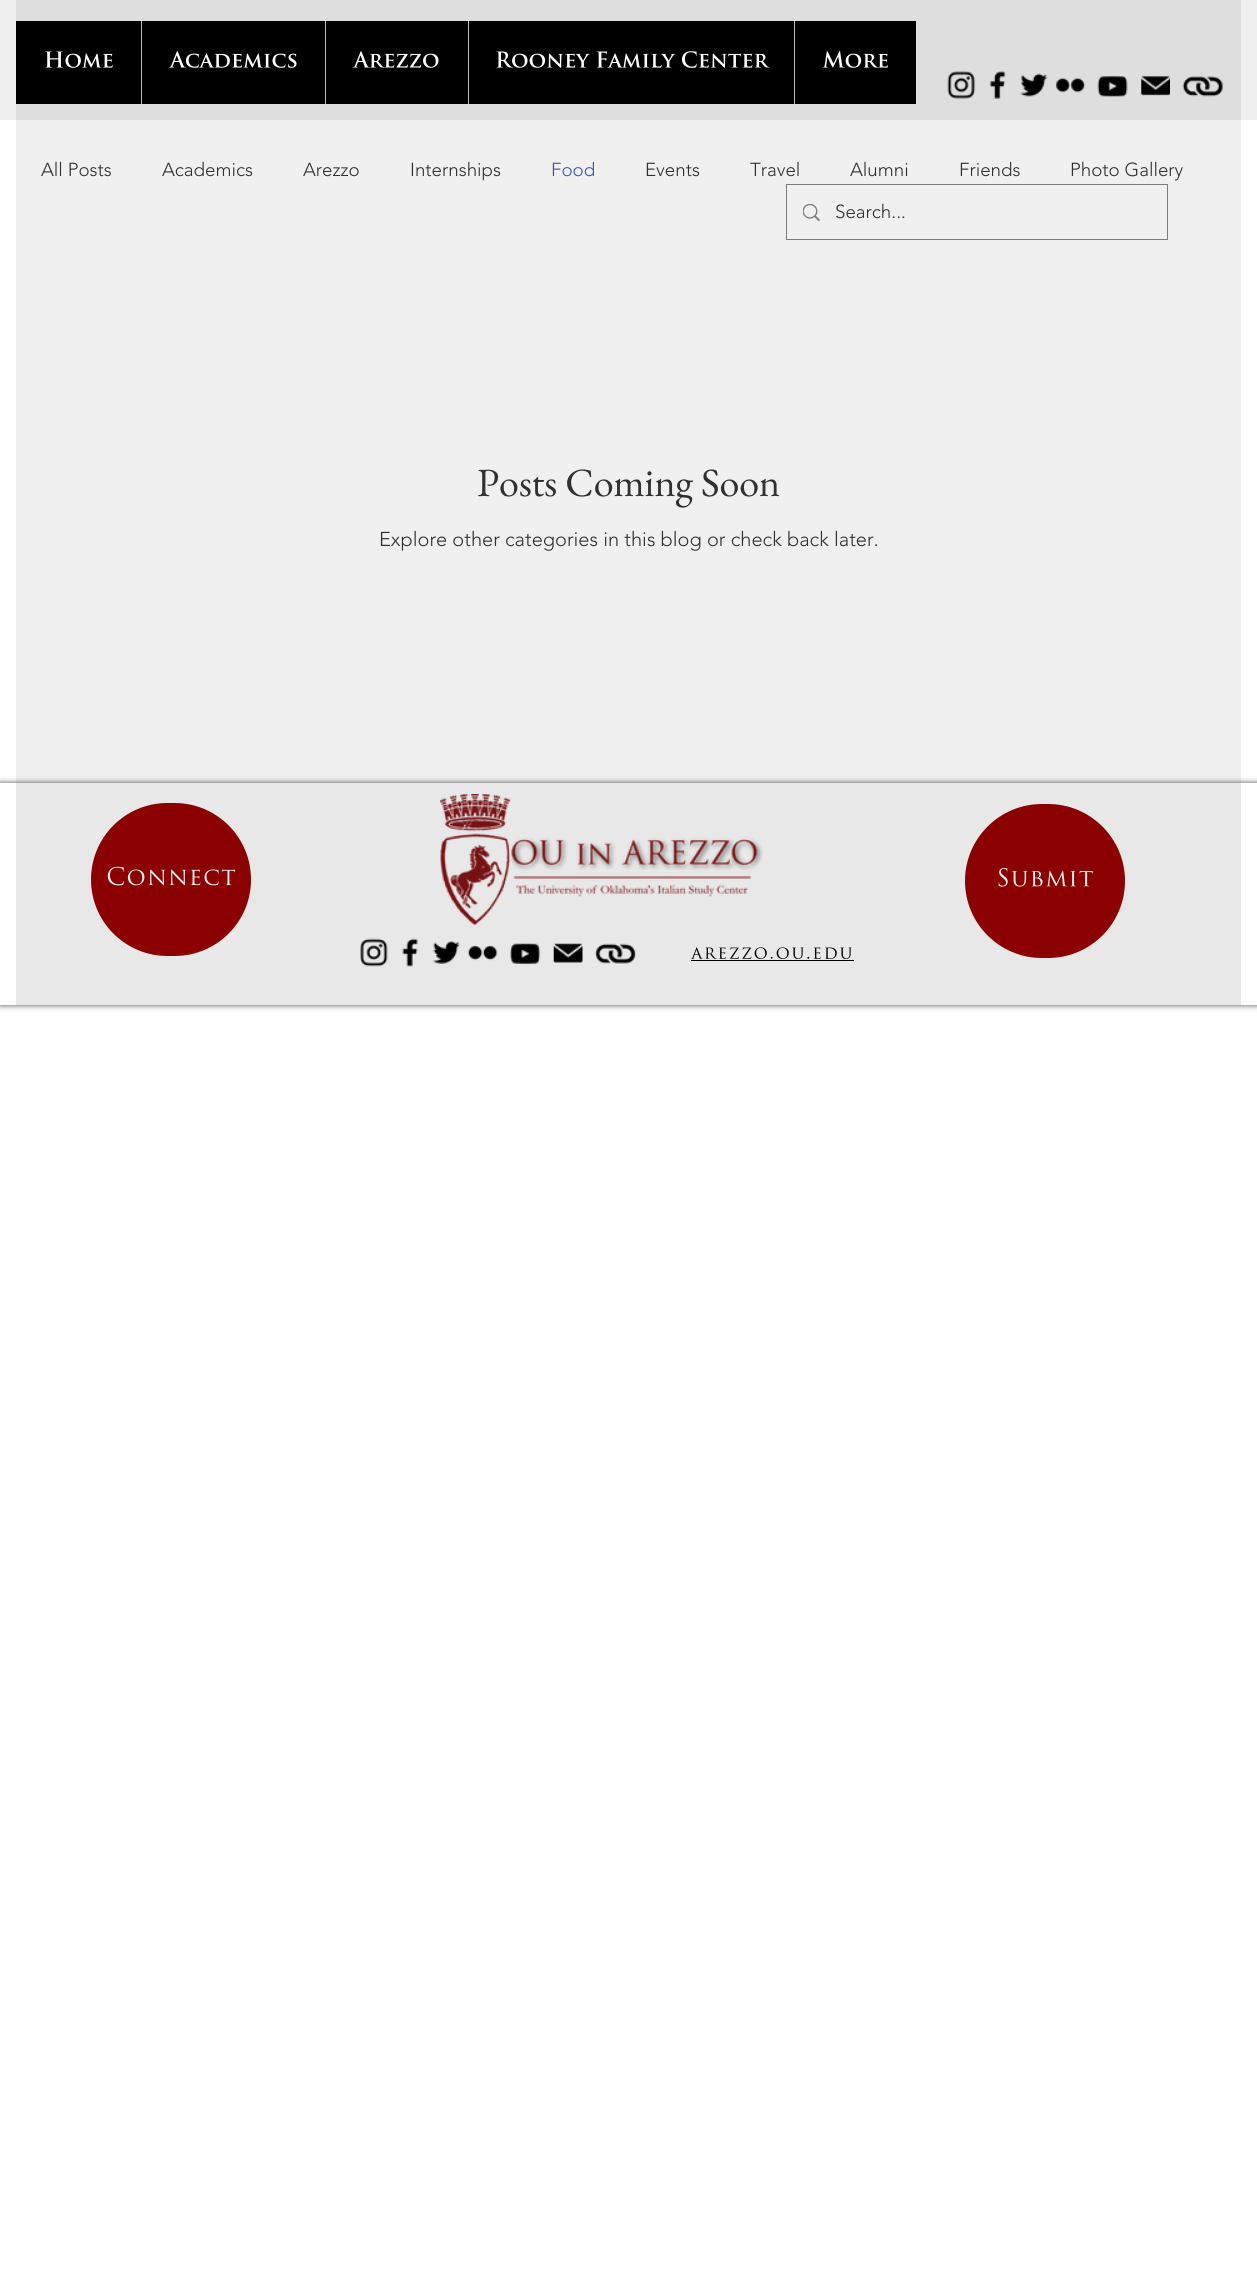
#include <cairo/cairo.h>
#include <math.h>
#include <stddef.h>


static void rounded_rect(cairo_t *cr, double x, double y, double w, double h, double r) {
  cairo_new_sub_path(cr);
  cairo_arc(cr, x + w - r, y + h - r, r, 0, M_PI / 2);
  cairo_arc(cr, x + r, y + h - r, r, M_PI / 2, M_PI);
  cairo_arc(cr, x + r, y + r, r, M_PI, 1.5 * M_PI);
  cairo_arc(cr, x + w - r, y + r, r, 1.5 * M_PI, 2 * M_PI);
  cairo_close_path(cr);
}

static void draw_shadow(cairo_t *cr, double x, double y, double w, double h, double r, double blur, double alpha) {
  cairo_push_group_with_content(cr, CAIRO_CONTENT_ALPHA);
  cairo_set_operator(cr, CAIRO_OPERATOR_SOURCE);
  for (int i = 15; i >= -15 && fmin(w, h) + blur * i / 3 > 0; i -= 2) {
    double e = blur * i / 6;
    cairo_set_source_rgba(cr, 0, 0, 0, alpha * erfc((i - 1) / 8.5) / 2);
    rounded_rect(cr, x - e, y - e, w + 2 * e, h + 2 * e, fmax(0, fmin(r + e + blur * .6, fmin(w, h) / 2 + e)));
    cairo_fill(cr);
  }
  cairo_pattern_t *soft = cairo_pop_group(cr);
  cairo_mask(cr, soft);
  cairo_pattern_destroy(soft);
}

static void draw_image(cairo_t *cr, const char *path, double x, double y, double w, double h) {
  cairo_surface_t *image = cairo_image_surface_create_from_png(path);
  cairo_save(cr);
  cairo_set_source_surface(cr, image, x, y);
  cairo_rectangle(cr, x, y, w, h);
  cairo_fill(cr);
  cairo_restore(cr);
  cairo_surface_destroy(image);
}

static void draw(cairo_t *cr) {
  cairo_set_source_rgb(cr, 1, 1, 1);
  cairo_paint(cr);
  cairo_set_source_rgb(cr, 240 / 255.0, 240 / 255.0, 240 / 255.0);
  cairo_rectangle(cr, 0, 0, 1257, 120);
  cairo_fill(cr);
  cairo_set_source_rgb(cr, 222 / 255.0, 222 / 255.0, 222 / 255.0);
  cairo_rectangle(cr, 16, 0, 1225, 120);
  cairo_fill(cr);
  cairo_set_source_rgb(cr, 0, 0, 0);
  cairo_rectangle(cr, 16, 21, 900, 83);
  cairo_fill(cr);
  draw_image(cr, "images/1.png", 45, 51, 68, 17);
  cairo_set_source_rgb(cr, 192 / 255.0, 192 / 255.0, 192 / 255.0);
  cairo_rectangle(cr, 141, 21, 1, 83);
  cairo_fill(cr);
  draw_image(cr, "images/2.png", 168, 51, 129, 17);
  cairo_rectangle(cr, 325, 21, 1, 83);
  cairo_fill(cr);
  draw_image(cr, "images/3.png", 352, 51, 87, 17);
  cairo_rectangle(cr, 468, 21, 1, 83);
  cairo_fill(cr);
  draw_image(cr, "images/4.png", 496, 51, 274, 17);
  cairo_rectangle(cr, 794, 21, 1, 83);
  cairo_fill(cr);
  draw_image(cr, "images/5.png", 822, 51, 66, 17);
  draw_image(cr, "images/6.png", 947, 71, 29, 28);
  draw_image(cr, "images/7.png", 989, 71, 17, 28);
  draw_image(cr, "images/8.png", 1020, 73, 28, 24);
  draw_image(cr, "images/9.png", 1055, 77, 31, 16);
  draw_image(cr, "images/10.png", 1097, 76, 31, 21);
  draw_image(cr, "images/11.png", 1141, 75, 29, 21);
  draw_image(cr, "images/12.png", 1182, 76, 42, 21);
  cairo_set_source_rgb(cr, 240 / 255.0, 240 / 255.0, 240 / 255.0);
  cairo_rectangle(cr, 16, 120, 1225, 663);
  cairo_fill(cr);
  cairo_rectangle(cr, 786.5, 184.5, 381, 55);
  cairo_set_source_rgb(cr, 125 / 255.0, 125 / 255.0, 125 / 255.0);
  cairo_set_line_width(cr, 1);
  cairo_stroke(cr);
  draw_image(cr, "images/13.png", 803, 204, 17, 17);
  cairo_save(cr);
  cairo_set_fill_rule(cr, CAIRO_FILL_RULE_EVEN_ODD);
  cairo_new_path(cr);
  cairo_move_to(cr, 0, 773);
  cairo_line_to(cr, 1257, 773);
  cairo_line_to(cr, 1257, 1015);
  cairo_line_to(cr, 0, 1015);
  cairo_close_path(cr);
  cairo_move_to(cr, 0, 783);
  cairo_line_to(cr, 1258, 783);
  cairo_line_to(cr, 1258, 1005);
  cairo_line_to(cr, 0, 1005);
  cairo_close_path(cr);
  cairo_clip(cr);
  cairo_set_source_rgb(cr, 0, 0, 0);
  draw_shadow(cr, 0, 783, 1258, 222, 0, 3, 0.7);
  cairo_restore(cr);
  cairo_set_source_rgb(cr, 232 / 255.0, 232 / 255.0, 232 / 255.0);
  cairo_rectangle(cr, 16, 783, 1225, 222);
  cairo_fill(cr);
  cairo_set_source_rgb(cr, 139 / 255.0, 0, 0);
  rounded_rect(cr, 91, 803, 160, 153, 76.5);
  cairo_fill(cr);
  draw_image(cr, "images/14.png", 107, 866, 128, 20);
  draw_image(cr, "images/15.png", 440, 794, 323, 132);
  rounded_rect(cr, 965, 804, 160, 154, 77);
  cairo_fill(cr);
  draw_image(cr, "images/16.png", 998, 868, 95, 19);
  draw_image(cr, "images/17.png", 360, 938, 28, 29);
  draw_image(cr, "images/18.png", 402, 938, 16, 29);
  draw_image(cr, "images/19.png", 432, 941, 28, 23);
  draw_image(cr, "images/20.png", 468, 945, 30, 16);
  draw_image(cr, "images/21.png", 510, 943, 31, 21);
  draw_image(cr, "images/22.png", 553, 943, 30, 20);
  draw_image(cr, "images/23.png", 595, 943, 41, 21);
  draw_image(cr, "images/24.png", 690, 947, 162, 12);
  cairo_set_source_rgb(cr, 0, 0, 0);
  cairo_rectangle(cr, 691, 960, 163, 1);
  cairo_fill(cr);
  cairo_select_font_face(cr, "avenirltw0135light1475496 Light", CAIRO_FONT_SLANT_NORMAL, CAIRO_FONT_WEIGHT_NORMAL);
  cairo_set_font_size(cr, 18.75);
  cairo_set_source_rgb(cr, 48 / 255.0, 48 / 255.0, 48 / 255.0);
  cairo_move_to(cr, 41, 176);
  cairo_show_text(cr, "All Posts");
  cairo_move_to(cr, 162, 176);
  cairo_show_text(cr, "Academics");
  cairo_move_to(cr, 303, 176);
  cairo_show_text(cr, "Arezzo");
  cairo_move_to(cr, 410, 176);
  cairo_show_text(cr, "Internships");
  cairo_set_source_rgb(cr, 58 / 255.0, 84 / 255.0, 180 / 255.0);
  cairo_move_to(cr, 551, 176);
  cairo_show_text(cr, "Food");
  cairo_set_source_rgb(cr, 48 / 255.0, 48 / 255.0, 48 / 255.0);
  cairo_move_to(cr, 645, 176);
  cairo_show_text(cr, "Events");
  cairo_move_to(cr, 750, 176);
  cairo_show_text(cr, "Travel");
  cairo_move_to(cr, 850, 176);
  cairo_show_text(cr, "Alumni");
  cairo_move_to(cr, 959, 176);
  cairo_show_text(cr, "Friends");
  cairo_move_to(cr, 1070, 176);
  cairo_show_text(cr, "Photo Gallery");
  cairo_select_font_face(cr, "EB Garamond", CAIRO_FONT_SLANT_NORMAL, CAIRO_FONT_WEIGHT_NORMAL);
  cairo_set_font_size(cr, 40);
  cairo_move_to(cr, 477, 496);
  cairo_show_text(cr, "Posts Coming Soon");
  cairo_select_font_face(cr, "avenirltw0135light1475496 Light", CAIRO_FONT_SLANT_NORMAL, CAIRO_FONT_WEIGHT_NORMAL);
  cairo_set_font_size(cr, 20);
  cairo_move_to(cr, 379, 546);
  cairo_show_text(cr, "Explore other categories in this blog or check back later.");
  cairo_set_font_size(cr, 18.75);
  cairo_move_to(cr, 835, 218);
  cairo_show_text(cr, "Search...");
}

int main(void) {
  cairo_surface_t *surface = cairo_image_surface_create(CAIRO_FORMAT_RGB24, 1257, 2287);
  cairo_t *cr = cairo_create(surface);
  cairo_font_options_t *options = cairo_font_options_create();
  cairo_font_options_set_hint_metrics(options, CAIRO_HINT_METRICS_OFF);
  cairo_font_options_set_hint_style(options, CAIRO_HINT_STYLE_NONE);
  cairo_set_font_options(cr, options);
  cairo_set_miter_limit(cr, 4);
  draw(cr);
  cairo_surface_write_to_png(surface, "out.png");
  cairo_font_options_destroy(options);
  cairo_destroy(cr);
  cairo_surface_destroy(surface);
  return 0;
}
